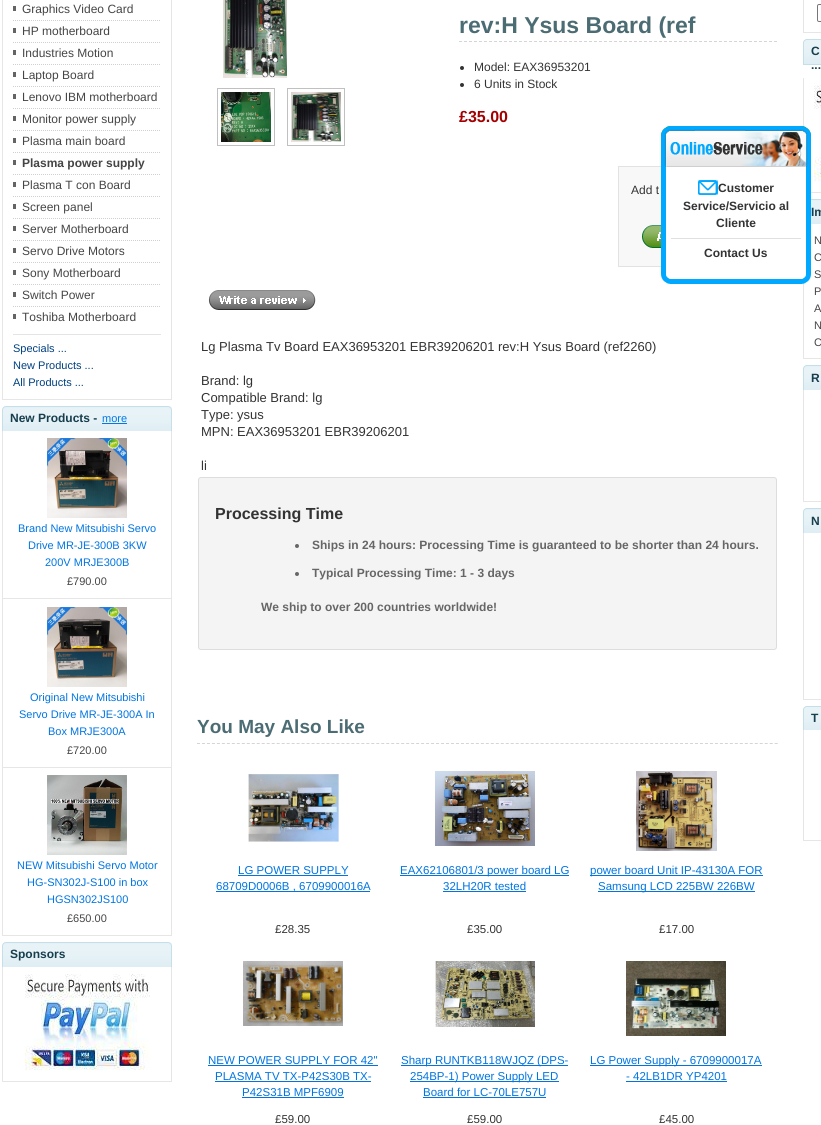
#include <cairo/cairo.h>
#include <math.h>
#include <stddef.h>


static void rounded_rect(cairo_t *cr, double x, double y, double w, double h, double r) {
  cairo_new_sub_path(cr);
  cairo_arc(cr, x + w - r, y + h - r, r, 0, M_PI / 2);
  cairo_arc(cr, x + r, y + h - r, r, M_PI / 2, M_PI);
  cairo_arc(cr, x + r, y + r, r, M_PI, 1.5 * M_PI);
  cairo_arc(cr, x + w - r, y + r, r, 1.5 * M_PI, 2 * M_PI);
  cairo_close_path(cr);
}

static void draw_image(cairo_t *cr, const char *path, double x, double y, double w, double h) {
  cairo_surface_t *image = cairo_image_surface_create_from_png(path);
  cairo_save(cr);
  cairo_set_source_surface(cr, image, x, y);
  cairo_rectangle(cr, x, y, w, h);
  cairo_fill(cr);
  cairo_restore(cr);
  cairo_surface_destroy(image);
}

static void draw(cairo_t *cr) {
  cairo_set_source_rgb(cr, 1, 1, 1);
  cairo_paint(cr);
  cairo_set_source_rgb(cr, 230 / 255.0, 230 / 255.0, 230 / 255.0);
  cairo_rectangle(cr, 171, 0, 1, 400);
  cairo_fill(cr);
  cairo_rectangle(cr, 2, 399, 170, 1);
  cairo_fill(cr);
  cairo_rectangle(cr, 2, 0, 1, 400);
  cairo_fill(cr);
  cairo_set_source_rgb(cr, 100 / 255.0, 100 / 255.0, 100 / 255.0);
  cairo_rectangle(cr, 13, 6, 3, 5);
  cairo_fill(cr);
  draw_image(cr, "images/1.png", 13, 20, 147, 1);
  cairo_rectangle(cr, 13, 28, 3, 5);
  cairo_fill(cr);
  draw_image(cr, "images/1.png", 13, 42, 147, 1);
  cairo_rectangle(cr, 13, 50, 3, 5);
  cairo_fill(cr);
  draw_image(cr, "images/1.png", 13, 64, 147, 1);
  cairo_rectangle(cr, 13, 72, 3, 5);
  cairo_fill(cr);
  draw_image(cr, "images/1.png", 13, 86, 147, 1);
  cairo_rectangle(cr, 13, 94, 3, 5);
  cairo_fill(cr);
  draw_image(cr, "images/1.png", 13, 108, 147, 1);
  cairo_rectangle(cr, 13, 116, 3, 5);
  cairo_fill(cr);
  draw_image(cr, "images/1.png", 13, 130, 147, 1);
  cairo_rectangle(cr, 13, 138, 3, 5);
  cairo_fill(cr);
  draw_image(cr, "images/1.png", 13, 152, 147, 1);
  cairo_rectangle(cr, 13, 160, 3, 5);
  cairo_fill(cr);
  draw_image(cr, "images/1.png", 13, 174, 147, 1);
  cairo_rectangle(cr, 13, 182, 3, 5);
  cairo_fill(cr);
  draw_image(cr, "images/1.png", 13, 196, 147, 1);
  cairo_rectangle(cr, 13, 204, 3, 5);
  cairo_fill(cr);
  draw_image(cr, "images/1.png", 13, 218, 147, 1);
  cairo_rectangle(cr, 13, 226, 3, 5);
  cairo_fill(cr);
  draw_image(cr, "images/1.png", 13, 240, 147, 1);
  cairo_rectangle(cr, 13, 248, 3, 5);
  cairo_fill(cr);
  draw_image(cr, "images/1.png", 13, 262, 147, 1);
  cairo_rectangle(cr, 13, 270, 3, 5);
  cairo_fill(cr);
  draw_image(cr, "images/1.png", 13, 284, 147, 1);
  cairo_rectangle(cr, 13, 292, 3, 5);
  cairo_fill(cr);
  draw_image(cr, "images/1.png", 13, 306, 147, 1);
  cairo_rectangle(cr, 13, 314, 3, 5);
  cairo_fill(cr);
  cairo_set_source_rgb(cr, 228 / 255.0, 228 / 255.0, 228 / 255.0);
  cairo_rectangle(cr, 13, 334, 148, 1);
  cairo_fill(cr);
  draw_image(cr, "images/2.png", 2, 406, 17, 25);
  draw_image(cr, "images/3.png", 19, 406, 153, 25);
  cairo_set_source_rgb(cr, 0, 120 / 255.0, 232 / 255.0);
  cairo_rectangle(cr, 102, 423, 25, 1);
  cairo_fill(cr);
  cairo_set_source_rgb(cr, 230 / 255.0, 230 / 255.0, 230 / 255.0);
  cairo_rectangle(cr, 171, 431, 1, 505);
  cairo_fill(cr);
  cairo_rectangle(cr, 2, 598, 170, 1);
  cairo_fill(cr);
  cairo_rectangle(cr, 2, 431, 1, 168);
  cairo_fill(cr);
  draw_image(cr, "images/4.png", 47, 438, 80, 80);
  cairo_rectangle(cr, 2, 767, 170, 1);
  cairo_fill(cr);
  cairo_rectangle(cr, 2, 599, 1, 169);
  cairo_fill(cr);
  draw_image(cr, "images/5.png", 47, 607, 80, 80);
  cairo_rectangle(cr, 2, 935, 170, 1);
  cairo_fill(cr);
  cairo_rectangle(cr, 2, 768, 1, 168);
  cairo_fill(cr);
  draw_image(cr, "images/6.png", 47, 775, 80, 80);
  draw_image(cr, "images/2.png", 2, 942, 17, 25);
  draw_image(cr, "images/3.png", 19, 942, 153, 25);
  cairo_rectangle(cr, 171, 967, 1, 115);
  cairo_fill(cr);
  cairo_rectangle(cr, 2, 1081, 170, 1);
  cairo_fill(cr);
  cairo_rectangle(cr, 2, 967, 1, 115);
  cairo_fill(cr);
  draw_image(cr, "images/7.png", 25, 974, 125, 97);
  draw_image(cr, "images/8.png", 223, 0, 64, 78);
  cairo_rectangle(cr, 217.5, 88.5, 57, 57);
  cairo_set_source_rgb(cr, 192 / 255.0, 192 / 255.0, 192 / 255.0);
  cairo_set_line_width(cr, 1);
  cairo_stroke(cr);
  draw_image(cr, "images/9.png", 221, 92, 50, 50);
  cairo_rectangle(cr, 287.5, 88.5, 57, 57);
  cairo_stroke(cr);
  draw_image(cr, "images/10.png", 291, 92, 50, 50);
  cairo_new_path(cr);
  cairo_move_to(cr, 459, 41.5);
  cairo_line_to(cr, 777, 41.5);
  cairo_set_source_rgb(cr, 213 / 255.0, 213 / 255.0, 213 / 255.0);
  cairo_set_dash(cr, (double[]){3, 2}, 2, 0);
  cairo_stroke(cr);
  cairo_set_source_rgb(cr, 51 / 255.0, 51 / 255.0, 51 / 255.0);
  cairo_arc(cr, 462, 68, 2, 0, 2 * M_PI);
  cairo_fill(cr);
  cairo_arc(cr, 462, 85, 2, 0, 2 * M_PI);
  cairo_fill(cr);
  cairo_set_source_rgb(cr, 248 / 255.0, 248 / 255.0, 248 / 255.0);
  cairo_rectangle(cr, 619, 167, 42, 99);
  cairo_fill(cr);
  cairo_rectangle(cr, 618.5, 166.5, 146, 100);
  cairo_set_source_rgb(cr, 226 / 255.0, 226 / 255.0, 226 / 255.0);
  cairo_set_dash(cr, NULL, 0, 0);
  cairo_stroke(cr);
  draw_image(cr, "images/11.png", 642, 225, 19, 23);
  draw_image(cr, "images/12.png", 208, 290, 108, 20);
  cairo_set_source_rgb(cr, 244 / 255.0, 244 / 255.0, 244 / 255.0);
  rounded_rect(cr, 198.5, 477.5, 578, 172, 2.5);
  cairo_fill_preserve(cr);
  cairo_set_source_rgb(cr, 221 / 255.0, 221 / 255.0, 221 / 255.0);
  cairo_stroke(cr);
  cairo_set_source_rgb(cr, 102 / 255.0, 102 / 255.0, 102 / 255.0);
  cairo_arc(cr, 297, 546, 2, 0, 2 * M_PI);
  cairo_fill(cr);
  cairo_arc(cr, 297, 574, 2, 0, 2 * M_PI);
  cairo_fill(cr);
  cairo_new_path(cr);
  cairo_move_to(cr, 197, 743.5);
  cairo_line_to(cr, 778, 743.5);
  cairo_set_source_rgb(cr, 213 / 255.0, 213 / 255.0, 213 / 255.0);
  cairo_set_dash(cr, (double[]){3, 1.98}, 2, 0);
  cairo_stroke(cr);
  draw_image(cr, "images/13.png", 248, 774, 91, 68);
  cairo_set_source_rgb(cr, 0, 117 / 255.0, 226 / 255.0);
  cairo_rectangle(cr, 238, 875, 110, 1);
  cairo_fill(cr);
  cairo_rectangle(cr, 216, 891, 154, 1);
  cairo_fill(cr);
  draw_image(cr, "images/14.png", 435, 771, 100, 75);
  cairo_rectangle(cr, 400, 875, 169, 1);
  cairo_fill(cr);
  cairo_rectangle(cr, 443, 891, 83, 1);
  cairo_fill(cr);
  draw_image(cr, "images/15.png", 636, 771, 81, 80);
  cairo_rectangle(cr, 590, 875, 173, 1);
  cairo_fill(cr);
  cairo_rectangle(cr, 598, 891, 157, 1);
  cairo_fill(cr);
  draw_image(cr, "images/16.png", 243, 961, 100, 65);
  cairo_rectangle(cr, 208, 1065, 170, 1);
  cairo_fill(cr);
  cairo_rectangle(cr, 215, 1081, 156, 1);
  cairo_fill(cr);
  cairo_rectangle(cr, 242, 1097, 102, 1);
  cairo_fill(cr);
  draw_image(cr, "images/17.png", 435, 961, 100, 66);
  cairo_rectangle(cr, 401, 1065, 167, 1);
  cairo_fill(cr);
  cairo_rectangle(cr, 410, 1081, 149, 1);
  cairo_fill(cr);
  cairo_rectangle(cr, 423, 1097, 123, 1);
  cairo_fill(cr);
  draw_image(cr, "images/18.png", 626, 961, 100, 75);
  cairo_rectangle(cr, 590, 1065, 172, 1);
  cairo_fill(cr);
  cairo_rectangle(cr, 626, 1081, 101, 1);
  cairo_fill(cr);
  cairo_set_source_rgb(cr, 230 / 255.0, 230 / 255.0, 230 / 255.0);
  cairo_rectangle(cr, 803, 32, 18, 1);
  cairo_fill(cr);
  cairo_rectangle(cr, 803, 0, 1, 33);
  cairo_fill(cr);
  rounded_rect(cr, 817.5, 4.5, 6, 17, 1.5);
  cairo_set_source_rgb(cr, 118 / 255.0, 118 / 255.0, 118 / 255.0);
  cairo_set_dash(cr, NULL, 0, 0);
  cairo_stroke(cr);
  draw_image(cr, "images/19.png", 803, 39, 3, 26);
  draw_image(cr, "images/20.png", 806, 39, 15, 26);
  cairo_set_source_rgb(cr, 230 / 255.0, 230 / 255.0, 230 / 255.0);
  cairo_rectangle(cr, 803, 192, 18, 1);
  cairo_fill(cr);
  cairo_rectangle(cr, 803, 78, 1, 49);
  cairo_fill(cr);
  draw_image(cr, "images/21.png", 814, 85, 7, 97);
  draw_image(cr, "images/22.png", 811, 199, 10, 25);
  cairo_rectangle(cr, 803, 358, 18, 1);
  cairo_fill(cr);
  cairo_rectangle(cr, 803, 283, 1, 76);
  cairo_fill(cr);
  draw_image(cr, "images/23.png", 803, 365, 3, 25);
  draw_image(cr, "images/24.png", 806, 365, 15, 25);
  cairo_rectangle(cr, 803, 501, 18, 1);
  cairo_fill(cr);
  cairo_rectangle(cr, 803, 390, 1, 112);
  cairo_fill(cr);
  draw_image(cr, "images/23.png", 803, 508, 3, 25);
  draw_image(cr, "images/24.png", 806, 508, 15, 25);
  cairo_rectangle(cr, 803, 699, 18, 1);
  cairo_fill(cr);
  cairo_rectangle(cr, 803, 533, 1, 167);
  cairo_fill(cr);
  draw_image(cr, "images/25.png", 803, 706, 3, 24);
  draw_image(cr, "images/26.png", 806, 706, 15, 24);
  cairo_rectangle(cr, 803, 840, 18, 1);
  cairo_fill(cr);
  cairo_rectangle(cr, 803, 730, 1, 111);
  cairo_fill(cr);
  draw_image(cr, "images/27.png", 661, 126, 150, 42);
  draw_image(cr, "images/28.png", 661, 168, 150, 104);
  draw_image(cr, "images/29.png", 698, 180, 20, 15);
  cairo_set_source_rgb(cr, 224 / 255.0, 224 / 255.0, 224 / 255.0);
  cairo_rectangle(cr, 671, 238, 130, 1);
  cairo_fill(cr);
  draw_image(cr, "images/30.png", 661, 272, 150, 12);
  cairo_select_font_face(cr, "Liberation Sans", CAIRO_FONT_SLANT_NORMAL, CAIRO_FONT_WEIGHT_NORMAL);
  cairo_set_font_size(cr, 12);
  cairo_set_source_rgb(cr, 69 / 255.0, 69 / 255.0, 69 / 255.0);
  cairo_move_to(cr, 22, 13);
  cairo_show_text(cr, "Graphics Video Card");
  cairo_move_to(cr, 22, 35);
  cairo_show_text(cr, "HP motherboard");
  cairo_move_to(cr, 22, 57);
  cairo_show_text(cr, "Industries Motion");
  cairo_move_to(cr, 22, 79);
  cairo_show_text(cr, "Laptop Board");
  cairo_move_to(cr, 22, 101);
  cairo_show_text(cr, "Lenovo IBM motherboard");
  cairo_move_to(cr, 22, 123);
  cairo_show_text(cr, "Monitor power supply");
  cairo_move_to(cr, 22, 145);
  cairo_show_text(cr, "Plasma main board");
  cairo_select_font_face(cr, "Liberation Sans", CAIRO_FONT_SLANT_NORMAL, CAIRO_FONT_WEIGHT_BOLD);
  cairo_move_to(cr, 22, 167);
  cairo_show_text(cr, "Plasma power supply");
  cairo_select_font_face(cr, "Liberation Sans", CAIRO_FONT_SLANT_NORMAL, CAIRO_FONT_WEIGHT_NORMAL);
  cairo_move_to(cr, 22, 189);
  cairo_show_text(cr, "Plasma T con Board");
  cairo_move_to(cr, 22, 211);
  cairo_show_text(cr, "Screen panel");
  cairo_move_to(cr, 22, 233);
  cairo_show_text(cr, "Server Motherboard");
  cairo_move_to(cr, 22, 255);
  cairo_show_text(cr, "Servo Drive Motors");
  cairo_move_to(cr, 22, 277);
  cairo_show_text(cr, "Sony Motherboard");
  cairo_move_to(cr, 22, 299);
  cairo_show_text(cr, "Switch Power");
  cairo_move_to(cr, 22, 321);
  cairo_show_text(cr, "Toshiba Motherboard");
  cairo_set_font_size(cr, 11);
  cairo_set_source_rgb(cr, 0, 64 / 255.0, 128 / 255.0);
  cairo_move_to(cr, 13, 352);
  cairo_show_text(cr, "Specials ...");
  cairo_move_to(cr, 13, 369);
  cairo_show_text(cr, "New Products ...");
  cairo_move_to(cr, 13, 386);
  cairo_show_text(cr, "All Products ...");
  cairo_select_font_face(cr, "Liberation Sans", CAIRO_FONT_SLANT_NORMAL, CAIRO_FONT_WEIGHT_BOLD);
  cairo_set_font_size(cr, 12);
  cairo_set_source_rgb(cr, 22 / 255.0, 62 / 255.0, 77 / 255.0);
  cairo_move_to(cr, 10, 422);
  cairo_show_text(cr, "New Products -");
  cairo_select_font_face(cr, "Liberation Sans", CAIRO_FONT_SLANT_NORMAL, CAIRO_FONT_WEIGHT_NORMAL);
  cairo_set_font_size(cr, 11);
  cairo_set_source_rgb(cr, 0, 120 / 255.0, 232 / 255.0);
  cairo_move_to(cr, 102, 422);
  cairo_show_text(cr, "more");
  cairo_set_source_rgb(cr, 0, 117 / 255.0, 226 / 255.0);
  cairo_move_to(cr, 18, 532);
  cairo_show_text(cr, "Brand New Mitsubishi Servo");
  cairo_move_to(cr, 28, 549);
  cairo_show_text(cr, "Drive MR-JE-300B 3KW");
  cairo_move_to(cr, 45, 566);
  cairo_show_text(cr, "200V MRJE300B");
  cairo_set_source_rgb(cr, 69 / 255.0, 69 / 255.0, 69 / 255.0);
  cairo_move_to(cr, 67, 585);
  cairo_show_text(cr, "£790.00");
  cairo_set_source_rgb(cr, 0, 117 / 255.0, 226 / 255.0);
  cairo_move_to(cr, 30, 701);
  cairo_show_text(cr, "Original New Mitsubishi");
  cairo_move_to(cr, 19, 718);
  cairo_show_text(cr, "Servo Drive MR-JE-300A In");
  cairo_move_to(cr, 48, 735);
  cairo_show_text(cr, "Box MRJE300A");
  cairo_set_source_rgb(cr, 69 / 255.0, 69 / 255.0, 69 / 255.0);
  cairo_move_to(cr, 67, 754);
  cairo_show_text(cr, "£720.00");
  cairo_set_source_rgb(cr, 0, 117 / 255.0, 226 / 255.0);
  cairo_move_to(cr, 17, 869);
  cairo_show_text(cr, "NEW Mitsubishi Servo Motor");
  cairo_move_to(cr, 27, 886);
  cairo_show_text(cr, "HG-SN302J-S100 in box");
  cairo_move_to(cr, 47, 903);
  cairo_show_text(cr, "HGSN302JS100");
  cairo_set_source_rgb(cr, 69 / 255.0, 69 / 255.0, 69 / 255.0);
  cairo_move_to(cr, 67, 922);
  cairo_show_text(cr, "£650.00");
  cairo_select_font_face(cr, "Liberation Sans", CAIRO_FONT_SLANT_NORMAL, CAIRO_FONT_WEIGHT_BOLD);
  cairo_set_font_size(cr, 12);
  cairo_set_source_rgb(cr, 22 / 255.0, 62 / 255.0, 77 / 255.0);
  cairo_move_to(cr, 10, 958);
  cairo_show_text(cr, "Sponsors");
  cairo_set_font_size(cr, 23);
  cairo_set_source_rgb(cr, 76 / 255.0, 108 / 255.0, 116 / 255.0);
  cairo_move_to(cr, 459, 33);
  cairo_show_text(cr, "rev:H Ysus Board (ref");
  cairo_select_font_face(cr, "Liberation Sans", CAIRO_FONT_SLANT_NORMAL, CAIRO_FONT_WEIGHT_NORMAL);
  cairo_set_font_size(cr, 12);
  cairo_set_source_rgb(cr, 51 / 255.0, 51 / 255.0, 51 / 255.0);
  cairo_move_to(cr, 474, 71);
  cairo_show_text(cr, "Model: EAX36953201");
  cairo_move_to(cr, 474, 88);
  cairo_show_text(cr, "6 Units in Stock");
  cairo_select_font_face(cr, "Liberation Sans", CAIRO_FONT_SLANT_NORMAL, CAIRO_FONT_WEIGHT_BOLD);
  cairo_set_font_size(cr, 16);
  cairo_set_source_rgb(cr, 163 / 255.0, 1 / 255.0, 1 / 255.0);
  cairo_move_to(cr, 459, 122);
  cairo_show_text(cr, "£35.00");
  cairo_select_font_face(cr, "Liberation Sans", CAIRO_FONT_SLANT_NORMAL, CAIRO_FONT_WEIGHT_NORMAL);
  cairo_set_font_size(cr, 12);
  cairo_set_source_rgb(cr, 51 / 255.0, 51 / 255.0, 51 / 255.0);
  cairo_move_to(cr, 631, 194);
  cairo_show_text(cr, "Add t");
  cairo_set_font_size(cr, 13);
  cairo_move_to(cr, 201, 351);
  cairo_show_text(cr, "Lg Plasma Tv Board EAX36953201 EBR39206201 rev:H Ysus Board (ref2260)");
  cairo_move_to(cr, 201, 385);
  cairo_show_text(cr, "Brand: lg");
  cairo_move_to(cr, 201, 402);
  cairo_show_text(cr, "Compatible Brand: lg");
  cairo_move_to(cr, 201, 419);
  cairo_show_text(cr, "Type: ysus");
  cairo_move_to(cr, 201, 436);
  cairo_show_text(cr, "MPN: EAX36953201 EBR39206201");
  cairo_move_to(cr, 201, 470);
  cairo_show_text(cr, "li");
  cairo_select_font_face(cr, "Liberation Sans", CAIRO_FONT_SLANT_NORMAL, CAIRO_FONT_WEIGHT_BOLD);
  cairo_set_font_size(cr, 16);
  cairo_move_to(cr, 215, 519);
  cairo_show_text(cr, "Processing Time");
  cairo_set_font_size(cr, 12);
  cairo_set_source_rgb(cr, 102 / 255.0, 102 / 255.0, 102 / 255.0);
  cairo_move_to(cr, 312, 549);
  cairo_show_text(cr, "Ships in 24 hours: Processing Time is guaranteed to be shorter than 24 hours.");
  cairo_move_to(cr, 312, 577);
  cairo_show_text(cr, "Typical Processing Time: 1 - 3 days");
  cairo_move_to(cr, 261, 611);
  cairo_show_text(cr, "We ship to over 200 countries worldwide!");
  cairo_set_font_size(cr, 19);
  cairo_set_source_rgb(cr, 76 / 255.0, 108 / 255.0, 116 / 255.0);
  cairo_move_to(cr, 197, 733);
  cairo_show_text(cr, "You May Also Like");
  cairo_select_font_face(cr, "Liberation Sans", CAIRO_FONT_SLANT_NORMAL, CAIRO_FONT_WEIGHT_NORMAL);
  cairo_set_font_size(cr, 11.5);
  cairo_set_source_rgb(cr, 0, 117 / 255.0, 226 / 255.0);
  cairo_move_to(cr, 238, 874);
  cairo_show_text(cr, "LG POWER SUPPLY");
  cairo_move_to(cr, 216, 890);
  cairo_show_text(cr, "68709D0006B , 6709900016A");
  cairo_set_source_rgb(cr, 51 / 255.0, 51 / 255.0, 51 / 255.0);
  cairo_move_to(cr, 275, 933);
  cairo_show_text(cr, "£28.35");
  cairo_set_source_rgb(cr, 0, 117 / 255.0, 226 / 255.0);
  cairo_move_to(cr, 400, 874);
  cairo_show_text(cr, "EAX62106801/3 power board LG");
  cairo_move_to(cr, 443, 890);
  cairo_show_text(cr, "32LH20R tested");
  cairo_set_source_rgb(cr, 51 / 255.0, 51 / 255.0, 51 / 255.0);
  cairo_move_to(cr, 467, 933);
  cairo_show_text(cr, "£35.00");
  cairo_set_source_rgb(cr, 0, 117 / 255.0, 226 / 255.0);
  cairo_move_to(cr, 590, 874);
  cairo_show_text(cr, "power board Unit IP-43130A FOR");
  cairo_move_to(cr, 598, 890);
  cairo_show_text(cr, "Samsung LCD 225BW 226BW");
  cairo_set_source_rgb(cr, 51 / 255.0, 51 / 255.0, 51 / 255.0);
  cairo_move_to(cr, 659, 933);
  cairo_show_text(cr, "£17.00");
  cairo_set_source_rgb(cr, 0, 117 / 255.0, 226 / 255.0);
  cairo_move_to(cr, 208, 1064);
  cairo_show_text(cr, "NEW POWER SUPPLY FOR 42\"");
  cairo_move_to(cr, 215, 1080);
  cairo_show_text(cr, "PLASMA TV TX-P42S30B TX-");
  cairo_move_to(cr, 242, 1096);
  cairo_show_text(cr, "P42S31B MPF6909");
  cairo_set_source_rgb(cr, 51 / 255.0, 51 / 255.0, 51 / 255.0);
  cairo_move_to(cr, 275, 1123);
  cairo_show_text(cr, "£59.00");
  cairo_set_source_rgb(cr, 0, 117 / 255.0, 226 / 255.0);
  cairo_move_to(cr, 401, 1064);
  cairo_show_text(cr, "Sharp RUNTKB118WJQZ (DPS-");
  cairo_move_to(cr, 410, 1080);
  cairo_show_text(cr, "254BP-1) Power Supply LED");
  cairo_move_to(cr, 423, 1096);
  cairo_show_text(cr, "Board for LC-70LE757U");
  cairo_set_source_rgb(cr, 51 / 255.0, 51 / 255.0, 51 / 255.0);
  cairo_move_to(cr, 467, 1123);
  cairo_show_text(cr, "£59.00");
  cairo_set_source_rgb(cr, 0, 117 / 255.0, 226 / 255.0);
  cairo_move_to(cr, 590, 1064);
  cairo_show_text(cr, "LG Power Supply - 6709900017A");
  cairo_move_to(cr, 626, 1080);
  cairo_show_text(cr, "- 42LB1DR YP4201");
  cairo_set_source_rgb(cr, 51 / 255.0, 51 / 255.0, 51 / 255.0);
  cairo_move_to(cr, 659, 1123);
  cairo_show_text(cr, "£45.00");
  cairo_select_font_face(cr, "Liberation Sans", CAIRO_FONT_SLANT_NORMAL, CAIRO_FONT_WEIGHT_BOLD);
  cairo_set_font_size(cr, 12);
  cairo_set_source_rgb(cr, 22 / 255.0, 62 / 255.0, 77 / 255.0);
  cairo_move_to(cr, 811, 55);
  cairo_show_text(cr, "C");
  cairo_move_to(cr, 811, 69);
  cairo_show_text(cr, "...");
  cairo_move_to(cr, 811, 216);
  cairo_show_text(cr, "Im");
  cairo_select_font_face(cr, "Liberation Sans", CAIRO_FONT_SLANT_NORMAL, CAIRO_FONT_WEIGHT_NORMAL);
  cairo_set_font_size(cr, 11);
  cairo_set_source_rgb(cr, 69 / 255.0, 69 / 255.0, 69 / 255.0);
  cairo_move_to(cr, 814, 244);
  cairo_show_text(cr, "N");
  cairo_move_to(cr, 814, 261);
  cairo_show_text(cr, "C");
  cairo_move_to(cr, 814, 278);
  cairo_show_text(cr, "S");
  cairo_move_to(cr, 814, 295);
  cairo_show_text(cr, "P");
  cairo_move_to(cr, 814, 312);
  cairo_show_text(cr, "A");
  cairo_move_to(cr, 814, 329);
  cairo_show_text(cr, "N");
  cairo_move_to(cr, 814, 346);
  cairo_show_text(cr, "C");
  cairo_select_font_face(cr, "Liberation Sans", CAIRO_FONT_SLANT_NORMAL, CAIRO_FONT_WEIGHT_BOLD);
  cairo_set_font_size(cr, 12);
  cairo_set_source_rgb(cr, 22 / 255.0, 62 / 255.0, 77 / 255.0);
  cairo_move_to(cr, 811, 382);
  cairo_show_text(cr, "R");
  cairo_move_to(cr, 811, 525);
  cairo_show_text(cr, "N");
  cairo_move_to(cr, 811, 722);
  cairo_show_text(cr, "T");
  cairo_set_source_rgb(cr, 51 / 255.0, 51 / 255.0, 51 / 255.0);
  cairo_move_to(cr, 718, 192);
  cairo_show_text(cr, "Customer");
  cairo_move_to(cr, 683, 210);
  cairo_show_text(cr, "Service/Servicio al");
  cairo_move_to(cr, 716, 227);
  cairo_show_text(cr, "Cliente");
  cairo_move_to(cr, 704, 257);
  cairo_show_text(cr, "Contact Us");
}

int main(void) {
  cairo_surface_t *surface = cairo_image_surface_create(CAIRO_FORMAT_RGB24, 821, 1125);
  cairo_t *cr = cairo_create(surface);
  cairo_font_options_t *options = cairo_font_options_create();
  cairo_font_options_set_hint_metrics(options, CAIRO_HINT_METRICS_OFF);
  cairo_font_options_set_hint_style(options, CAIRO_HINT_STYLE_NONE);
  cairo_set_font_options(cr, options);
  cairo_set_miter_limit(cr, 4);
  draw(cr);
  cairo_surface_write_to_png(surface, "out.png");
  cairo_font_options_destroy(options);
  cairo_destroy(cr);
  cairo_surface_destroy(surface);
  return 0;
}
